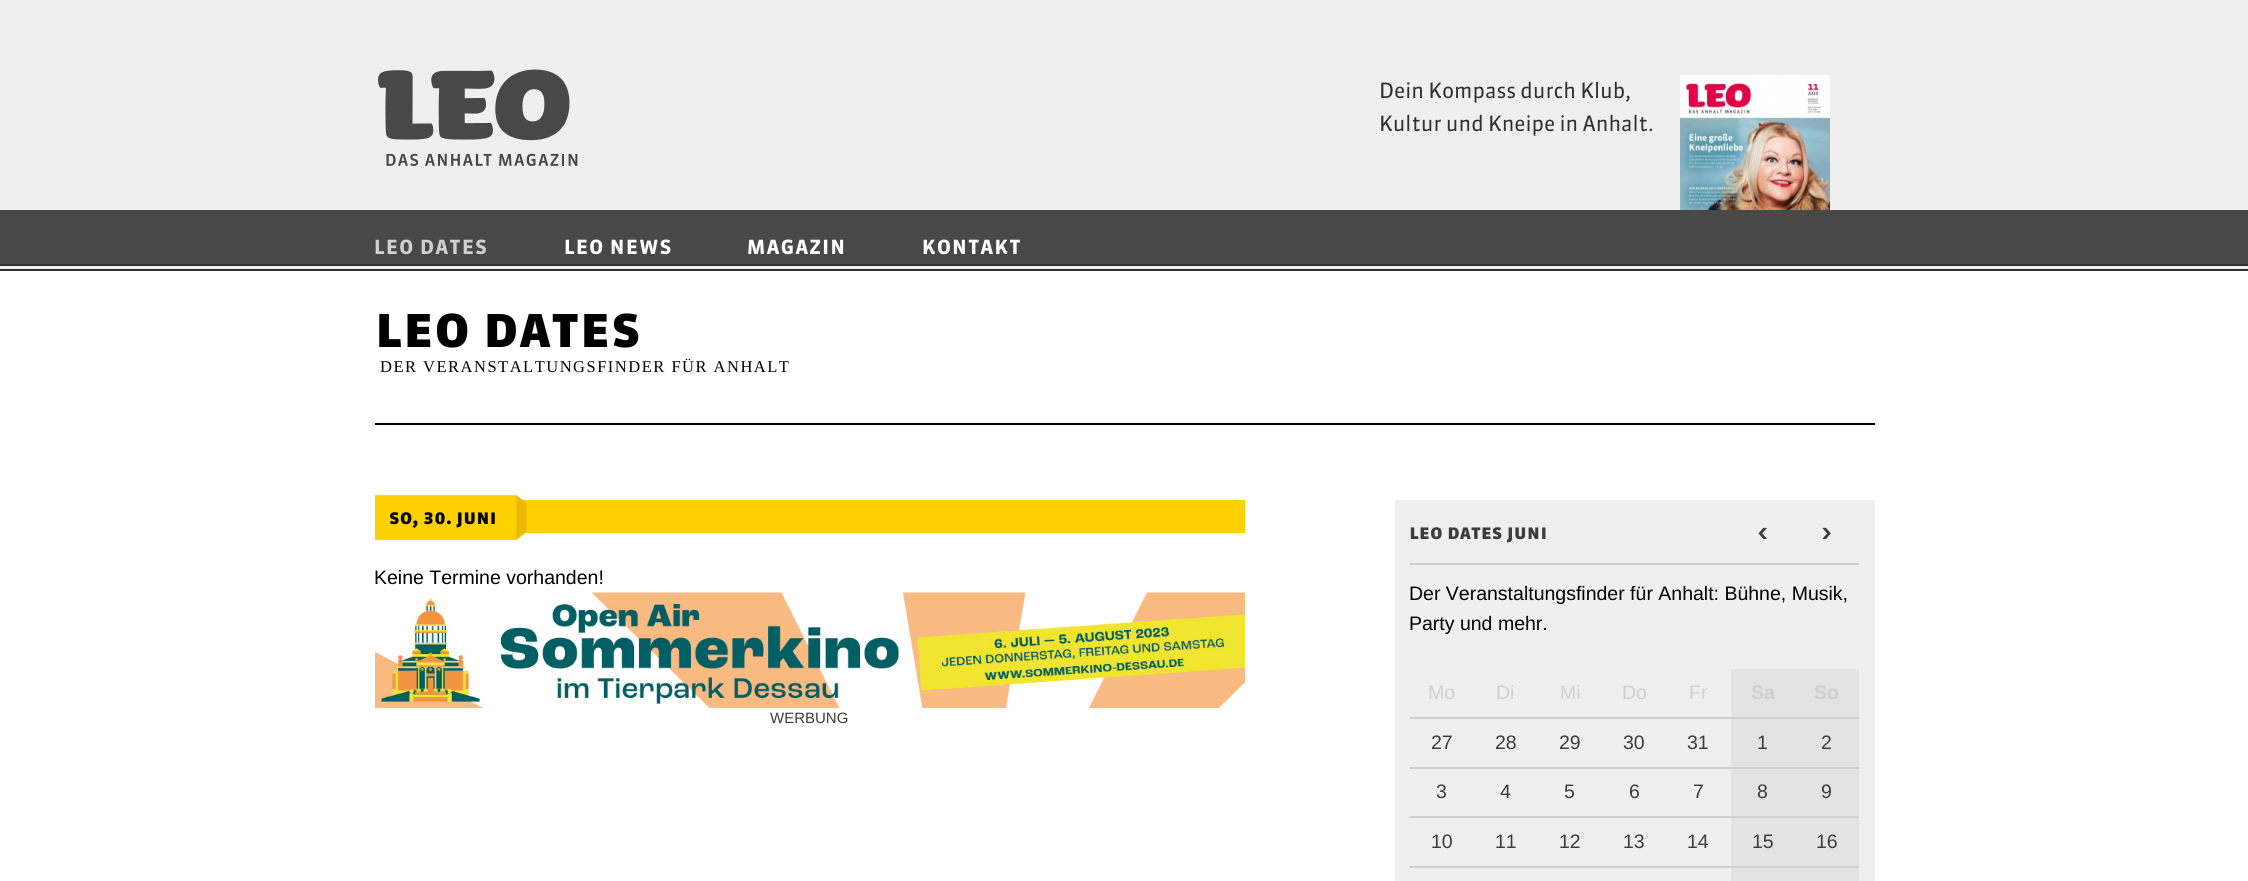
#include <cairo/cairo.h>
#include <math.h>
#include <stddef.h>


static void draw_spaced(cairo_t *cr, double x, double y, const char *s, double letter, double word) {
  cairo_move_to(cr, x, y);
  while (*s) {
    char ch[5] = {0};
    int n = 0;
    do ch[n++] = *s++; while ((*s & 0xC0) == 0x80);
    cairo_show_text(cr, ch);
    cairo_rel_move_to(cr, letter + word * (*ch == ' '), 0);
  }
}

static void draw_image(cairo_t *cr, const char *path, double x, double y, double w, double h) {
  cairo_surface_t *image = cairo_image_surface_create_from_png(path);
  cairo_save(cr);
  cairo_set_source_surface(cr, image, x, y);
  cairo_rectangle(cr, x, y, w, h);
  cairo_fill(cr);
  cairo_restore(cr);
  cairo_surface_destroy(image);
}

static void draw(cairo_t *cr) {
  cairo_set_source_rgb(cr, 1, 1, 1);
  cairo_paint(cr);
  cairo_set_source_rgb(cr, 51 / 255.0, 51 / 255.0, 51 / 255.0);
  cairo_rectangle(cr, 0, 270, 2248, 1);
  cairo_fill(cr);
  cairo_set_source_rgb(cr, 239 / 255.0, 239 / 255.0, 239 / 255.0);
  cairo_rectangle(cr, 0, 0, 2248, 269);
  cairo_fill(cr);
  cairo_set_source_rgb(cr, 48 / 255.0, 48 / 255.0, 48 / 255.0);
  cairo_rectangle(cr, 0, 269, 2248, 1);
  cairo_fill(cr);
  cairo_rectangle(cr, 0, 264, 2248, 2);
  cairo_fill(cr);
  draw_image(cr, "images/1.png", 378, 69, 200, 97);
  draw_image(cr, "images/2.png", 1680, 75, 150, 135);
  cairo_set_source_rgb(cr, 72 / 255.0, 72 / 255.0, 72 / 255.0);
  cairo_rectangle(cr, 0, 210, 2248, 54);
  cairo_fill(cr);
  cairo_set_source_rgb(cr, 0, 0, 0);
  cairo_rectangle(cr, 375, 423, 1500, 2);
  cairo_fill(cr);
  cairo_set_source_rgb(cr, 1, 209 / 255.0, 0);
  cairo_rectangle(cr, 522, 500, 723, 33);
  cairo_fill(cr);
  draw_image(cr, "images/3.png", 375, 495, 152, 45);
  draw_image(cr, "images/4.png", 375, 592, 870, 116);
  cairo_set_source_rgb(cr, 239 / 255.0, 239 / 255.0, 239 / 255.0);
  cairo_rectangle(cr, 1395, 500, 480, 381);
  cairo_fill(cr);
  cairo_set_source_rgb(cr, 207 / 255.0, 207 / 255.0, 207 / 255.0);
  cairo_rectangle(cr, 1410, 563, 449, 2);
  cairo_fill(cr);
  cairo_set_source_rgb(cr, 227 / 255.0, 227 / 255.0, 227 / 255.0);
  cairo_rectangle(cr, 1731, 669, 128, 48);
  cairo_fill(cr);
  cairo_set_source_rgb(cr, 207 / 255.0, 207 / 255.0, 207 / 255.0);
  cairo_rectangle(cr, 1410, 717, 449, 2);
  cairo_fill(cr);
  cairo_set_source_rgb(cr, 227 / 255.0, 227 / 255.0, 227 / 255.0);
  cairo_rectangle(cr, 1731, 719, 128, 48);
  cairo_fill(cr);
  cairo_set_source_rgb(cr, 207 / 255.0, 207 / 255.0, 207 / 255.0);
  cairo_rectangle(cr, 1410, 767, 449, 2);
  cairo_fill(cr);
  cairo_set_source_rgb(cr, 227 / 255.0, 227 / 255.0, 227 / 255.0);
  cairo_rectangle(cr, 1731, 769, 128, 47);
  cairo_fill(cr);
  cairo_set_source_rgb(cr, 207 / 255.0, 207 / 255.0, 207 / 255.0);
  cairo_rectangle(cr, 1410, 816, 449, 2);
  cairo_fill(cr);
  cairo_set_source_rgb(cr, 227 / 255.0, 227 / 255.0, 227 / 255.0);
  cairo_rectangle(cr, 1731, 818, 128, 48);
  cairo_fill(cr);
  cairo_set_source_rgb(cr, 207 / 255.0, 207 / 255.0, 207 / 255.0);
  cairo_rectangle(cr, 1410, 866, 449, 2);
  cairo_fill(cr);
  cairo_set_source_rgb(cr, 227 / 255.0, 227 / 255.0, 227 / 255.0);
  cairo_rectangle(cr, 1731, 868, 128, 13);
  cairo_fill(cr);
  cairo_select_font_face(cr, "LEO", CAIRO_FONT_SLANT_NORMAL, CAIRO_FONT_WEIGHT_NORMAL);
  cairo_set_font_size(cr, 21);
  cairo_set_source_rgb(cr, 48 / 255.0, 48 / 255.0, 48 / 255.0);
  cairo_move_to(cr, 1379, 98);
  cairo_show_text(cr, "Dein Kompass durch Klub,");
  cairo_move_to(cr, 1379, 131);
  cairo_show_text(cr, "Kultur und Kneipe in Anhalt.");
  cairo_select_font_face(cr, "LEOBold", CAIRO_FONT_SLANT_NORMAL, CAIRO_FONT_WEIGHT_BOLD);
  cairo_set_font_size(cr, 19.5);
  cairo_set_source_rgb(cr, 207 / 255.0, 207 / 255.0, 207 / 255.0);
  draw_spaced(cr, 374, 254, "LEO DATES", 1.5, 0);
  cairo_set_source_rgb(cr, 1, 1, 1);
  draw_spaced(cr, 564, 254, "LEO NEWS", 1.5, 0);
  draw_spaced(cr, 747, 254, "MAGAZIN", 1.5, 0);
  draw_spaced(cr, 922, 254, "KONTAKT", 1.5, 0);
  cairo_select_font_face(cr, "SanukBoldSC", CAIRO_FONT_SLANT_NORMAL, CAIRO_FONT_WEIGHT_BOLD);
  cairo_set_font_size(cr, 60);
  cairo_set_source_rgb(cr, 0, 0, 0);
  cairo_move_to(cr, 374, 347);
  cairo_show_text(cr, "leo dates");
  cairo_select_font_face(cr, "Liberation Serif", CAIRO_FONT_SLANT_NORMAL, CAIRO_FONT_WEIGHT_NORMAL);
  cairo_set_font_size(cr, 16.5);
  draw_spaced(cr, 380, 372, "DER VERANSTALTUNGSFINDER FÜR ANHALT", 1.5, 0);
  cairo_select_font_face(cr, "SanukBoldSC", CAIRO_FONT_SLANT_NORMAL, CAIRO_FONT_WEIGHT_BOLD);
  cairo_set_font_size(cr, 21);
  cairo_move_to(cr, 389, 524);
  cairo_show_text(cr, "so, 30. juni");
  cairo_select_font_face(cr, "Liberation Sans", CAIRO_FONT_SLANT_NORMAL, CAIRO_FONT_WEIGHT_NORMAL);
  cairo_set_font_size(cr, 19.5);
  cairo_move_to(cr, 374, 584);
  cairo_show_text(cr, "Keine Termine vorhanden!");
  cairo_set_font_size(cr, 15);
  cairo_set_source_rgb(cr, 60 / 255.0, 60 / 255.0, 59 / 255.0);
  cairo_move_to(cr, 770, 723);
  cairo_show_text(cr, "WERBUNG");
  cairo_select_font_face(cr, "SanukBoldSC", CAIRO_FONT_SLANT_NORMAL, CAIRO_FONT_WEIGHT_BOLD);
  cairo_set_font_size(cr, 21);
  cairo_move_to(cr, 1409, 539);
  cairo_show_text(cr, "leo dates juni");
  cairo_move_to(cr, 1757, 539);
  cairo_show_text(cr, "<");
  cairo_move_to(cr, 1821, 539);
  cairo_show_text(cr, ">");
  cairo_select_font_face(cr, "Liberation Sans", CAIRO_FONT_SLANT_NORMAL, CAIRO_FONT_WEIGHT_NORMAL);
  cairo_set_font_size(cr, 19.5);
  cairo_set_source_rgb(cr, 0, 0, 0);
  cairo_move_to(cr, 1409, 600);
  cairo_show_text(cr, "Der Veranstaltungsfinder für Anhalt: Bühne, Musik,");
  cairo_move_to(cr, 1409, 630);
  cairo_show_text(cr, "Party und mehr.");
  cairo_set_source_rgb(cr, 207 / 255.0, 207 / 255.0, 207 / 255.0);
  cairo_move_to(cr, 1428, 699);
  cairo_show_text(cr, "Mo");
  cairo_move_to(cr, 1496, 699);
  cairo_show_text(cr, "Di");
  cairo_move_to(cr, 1560, 699);
  cairo_show_text(cr, "Mi");
  cairo_move_to(cr, 1622, 699);
  cairo_show_text(cr, "Do");
  cairo_move_to(cr, 1689, 699);
  cairo_show_text(cr, "Fr");
  cairo_select_font_face(cr, "Liberation Sans", CAIRO_FONT_SLANT_NORMAL, CAIRO_FONT_WEIGHT_BOLD);
  cairo_move_to(cr, 1751, 699);
  cairo_show_text(cr, "Sa");
  cairo_move_to(cr, 1814, 699);
  cairo_show_text(cr, "So");
  cairo_select_font_face(cr, "Liberation Sans", CAIRO_FONT_SLANT_NORMAL, CAIRO_FONT_WEIGHT_NORMAL);
  cairo_set_source_rgb(cr, 60 / 255.0, 60 / 255.0, 59 / 255.0);
  cairo_move_to(cr, 1431, 749);
  cairo_show_text(cr, "27");
  cairo_move_to(cr, 1495, 749);
  cairo_show_text(cr, "28");
  cairo_move_to(cr, 1559, 749);
  cairo_show_text(cr, "29");
  cairo_move_to(cr, 1623, 749);
  cairo_show_text(cr, "30");
  cairo_move_to(cr, 1687, 749);
  cairo_show_text(cr, "31");
  cairo_move_to(cr, 1757, 749);
  cairo_show_text(cr, "1");
  cairo_move_to(cr, 1821, 749);
  cairo_show_text(cr, "2");
  cairo_move_to(cr, 1436, 798);
  cairo_show_text(cr, "3");
  cairo_move_to(cr, 1500, 798);
  cairo_show_text(cr, "4");
  cairo_move_to(cr, 1564, 798);
  cairo_show_text(cr, "5");
  cairo_move_to(cr, 1629, 798);
  cairo_show_text(cr, "6");
  cairo_move_to(cr, 1693, 798);
  cairo_show_text(cr, "7");
  cairo_move_to(cr, 1757, 798);
  cairo_show_text(cr, "8");
  cairo_move_to(cr, 1821, 798);
  cairo_show_text(cr, "9");
  cairo_move_to(cr, 1431, 848);
  cairo_show_text(cr, "10");
  cairo_move_to(cr, 1495, 848);
  cairo_show_text(cr, "11");
  cairo_move_to(cr, 1559, 848);
  cairo_show_text(cr, "12");
  cairo_move_to(cr, 1623, 848);
  cairo_show_text(cr, "13");
  cairo_move_to(cr, 1687, 848);
  cairo_show_text(cr, "14");
  cairo_move_to(cr, 1752, 848);
  cairo_show_text(cr, "15");
  cairo_move_to(cr, 1816, 848);
  cairo_show_text(cr, "16");
}

int main(void) {
  cairo_surface_t *surface = cairo_image_surface_create(CAIRO_FORMAT_RGB24, 2248, 881);
  cairo_t *cr = cairo_create(surface);
  cairo_font_options_t *options = cairo_font_options_create();
  cairo_font_options_set_hint_metrics(options, CAIRO_HINT_METRICS_OFF);
  cairo_font_options_set_hint_style(options, CAIRO_HINT_STYLE_NONE);
  cairo_set_font_options(cr, options);
  cairo_set_miter_limit(cr, 4);
  draw(cr);
  cairo_surface_write_to_png(surface, "out.png");
  cairo_font_options_destroy(options);
  cairo_destroy(cr);
  cairo_surface_destroy(surface);
  return 0;
}
